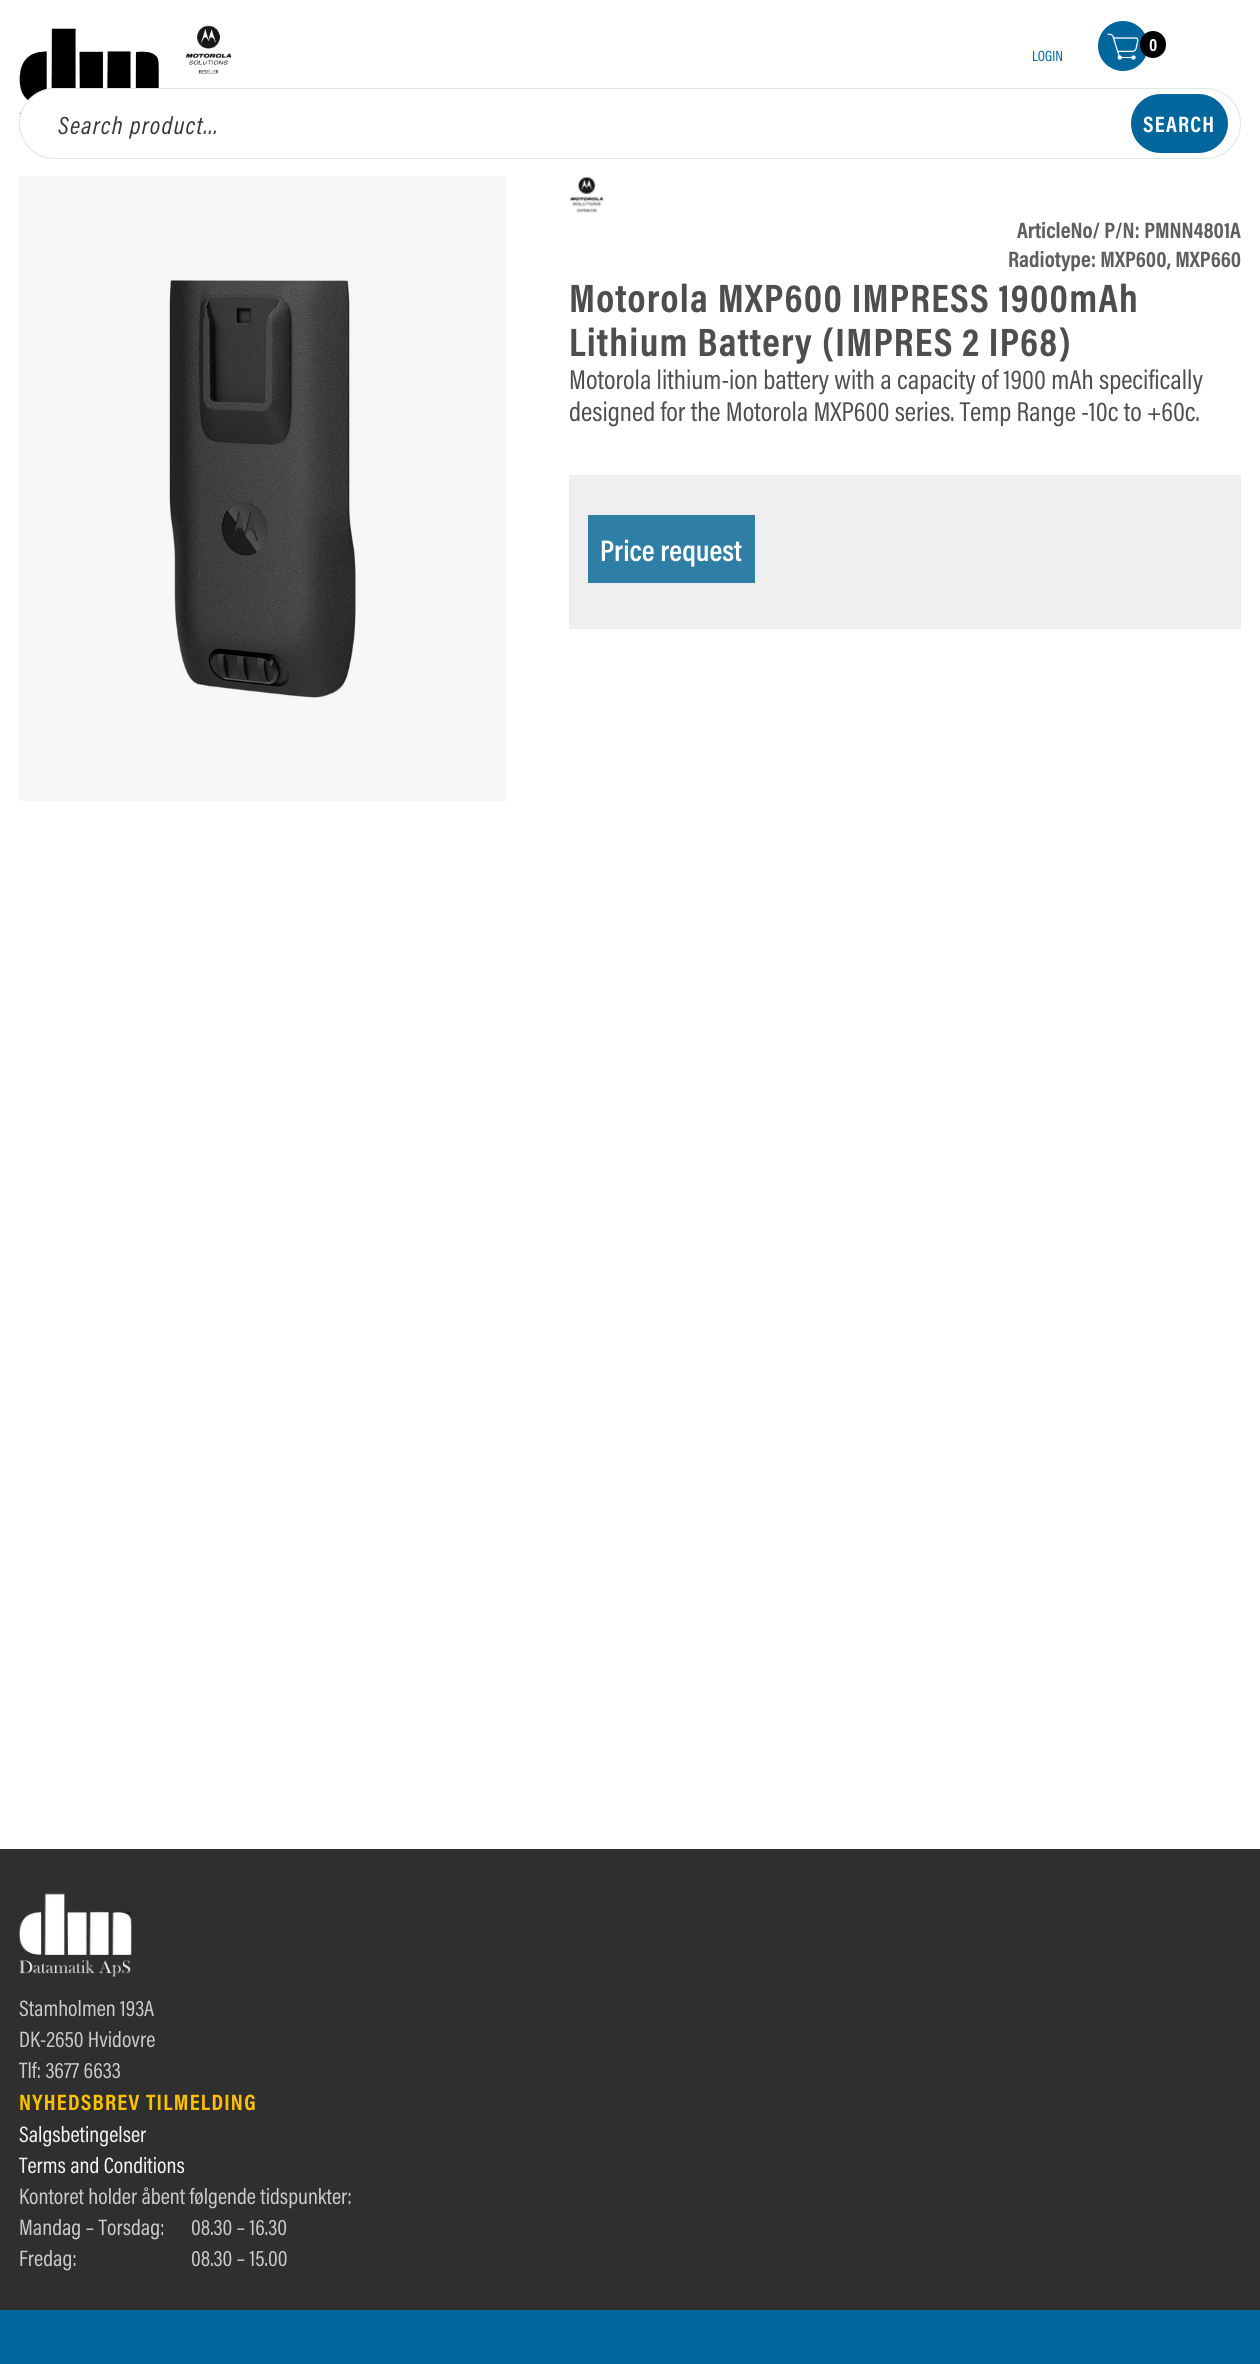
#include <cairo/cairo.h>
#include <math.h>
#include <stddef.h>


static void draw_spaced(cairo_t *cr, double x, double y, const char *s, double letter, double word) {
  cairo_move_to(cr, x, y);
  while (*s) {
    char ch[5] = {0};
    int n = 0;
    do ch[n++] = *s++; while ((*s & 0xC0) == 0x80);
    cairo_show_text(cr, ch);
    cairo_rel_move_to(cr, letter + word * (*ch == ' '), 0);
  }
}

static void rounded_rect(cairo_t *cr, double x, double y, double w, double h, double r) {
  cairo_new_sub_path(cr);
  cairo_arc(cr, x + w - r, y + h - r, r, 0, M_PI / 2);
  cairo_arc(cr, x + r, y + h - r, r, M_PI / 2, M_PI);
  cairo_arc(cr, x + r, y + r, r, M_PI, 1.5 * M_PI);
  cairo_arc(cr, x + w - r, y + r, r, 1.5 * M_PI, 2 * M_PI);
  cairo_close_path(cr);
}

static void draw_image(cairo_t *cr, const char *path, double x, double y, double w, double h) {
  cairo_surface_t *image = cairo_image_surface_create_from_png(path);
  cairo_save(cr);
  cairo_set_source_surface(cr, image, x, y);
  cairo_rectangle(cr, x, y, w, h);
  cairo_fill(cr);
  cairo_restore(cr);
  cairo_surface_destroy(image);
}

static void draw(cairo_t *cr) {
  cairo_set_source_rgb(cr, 1, 1, 1);
  cairo_paint(cr);
  cairo_set_source_rgb(cr, 247 / 255.0, 247 / 255.0, 247 / 255.0);
  cairo_rectangle(cr, 19, 176, 487, 625);
  cairo_fill(cr);
  draw_image(cr, "images/1.png", 19, 28, 140, 101);
  draw_image(cr, "images/2.png", 185, 25, 47, 49);
  cairo_set_source_rgb(cr, 0, 102 / 255.0, 155 / 255.0);
  cairo_arc(cr, 1123, 46, 25, 0, 2 * M_PI);
  cairo_fill(cr);
  draw_image(cr, "images/3.png", 1107, 33, 32, 27);
  cairo_set_source_rgb(cr, 0, 0, 0);
  rounded_rect(cr, 1140, 31, 26, 27, 13);
  cairo_fill(cr);
  cairo_set_source_rgb(cr, 1, 1, 1);
  rounded_rect(cr, 19.5, 88.5, 1221, 70, 35);
  cairo_fill_preserve(cr);
  cairo_set_source_rgb(cr, 218 / 255.0, 233 / 255.0, 230 / 255.0);
  cairo_set_line_width(cr, 1);
  cairo_stroke(cr);
  cairo_set_source_rgb(cr, 0, 102 / 255.0, 155 / 255.0);
  rounded_rect(cr, 1131, 94, 97, 59, 29.5);
  cairo_fill(cr);
  draw_image(cr, "images/4.png", 169, 279, 187, 419);
  draw_image(cr, "images/5.png", 569, 176, 35, 37);
  cairo_set_source_rgb(cr, 239 / 255.0, 239 / 255.0, 239 / 255.0);
  cairo_rectangle(cr, 569, 475, 672, 154);
  cairo_fill(cr);
  cairo_set_source_rgb(cr, 46 / 255.0, 126 / 255.0, 165 / 255.0);
  cairo_rectangle(cr, 588, 515, 167, 68);
  cairo_fill(cr);
  cairo_set_source_rgb(cr, 47 / 255.0, 47 / 255.0, 47 / 255.0);
  cairo_rectangle(cr, 0, 1849, 1260, 461);
  cairo_fill(cr);
  draw_image(cr, "images/6.png", 18, 1893, 114, 84);
  cairo_set_source_rgb(cr, 0, 102 / 255.0, 155 / 255.0);
  cairo_rectangle(cr, 0, 2310, 1260, 54);
  cairo_fill(cr);
  cairo_select_font_face(cr, "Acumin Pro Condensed", CAIRO_FONT_SLANT_NORMAL, CAIRO_FONT_WEIGHT_BOLD);
  cairo_set_font_size(cr, 18);
  cairo_set_source_rgb(cr, 1, 1, 1);
  cairo_move_to(cr, 1149, 51);
  cairo_show_text(cr, "0");
  cairo_select_font_face(cr, "Acumin Pro Condensed", CAIRO_FONT_SLANT_NORMAL, CAIRO_FONT_WEIGHT_NORMAL);
  cairo_set_font_size(cr, 15);
  cairo_set_source_rgb(cr, 0, 102 / 255.0, 155 / 255.0);
  cairo_move_to(cr, 1032, 61);
  cairo_show_text(cr, "LOGIN");
  cairo_select_font_face(cr, "Acumin Pro Condensed", CAIRO_FONT_SLANT_ITALIC, CAIRO_FONT_WEIGHT_NORMAL);
  cairo_set_font_size(cr, 25);
  cairo_set_source_rgb(cr, 54 / 255.0, 54 / 255.0, 54 / 255.0);
  draw_spaced(cr, 58, 134, "Search product...", 1.25, 0);
  cairo_select_font_face(cr, "Acumin Pro Condensed", CAIRO_FONT_SLANT_NORMAL, CAIRO_FONT_WEIGHT_BOLD);
  cairo_set_font_size(cr, 22.5);
  cairo_set_source_rgb(cr, 1, 1, 1);
  draw_spaced(cr, 1143, 132, "SEARCH", 1.25, 0);
  cairo_set_source_rgb(cr, 95 / 255.0, 95 / 255.0, 95 / 255.0);
  cairo_move_to(cr, 1017, 238);
  cairo_show_text(cr, "ArticleNo/ P/N: PMNN4801A");
  cairo_move_to(cr, 1008, 267);
  cairo_show_text(cr, "Radiotype: MXP600, MXP660");
  cairo_set_font_size(cr, 40);
  cairo_set_source_rgb(cr, 78 / 255.0, 78 / 255.0, 78 / 255.0);
  draw_spaced(cr, 569, 312, "Motorola MXP600 IMPRESS 1900mAh", 1.25, 0);
  draw_spaced(cr, 569, 356, "Lithium Battery (IMPRES 2 IP68)", 1.25, 0);
  cairo_select_font_face(cr, "Acumin Pro Condensed", CAIRO_FONT_SLANT_NORMAL, CAIRO_FONT_WEIGHT_NORMAL);
  cairo_set_font_size(cr, 27.5);
  cairo_move_to(cr, 569, 389);
  cairo_show_text(cr, "Motorola lithium-ion battery with a capacity of 1900 mAh specifically");
  cairo_move_to(cr, 569, 421);
  cairo_show_text(cr, "designed for the Motorola MXP600 series. Temp Range -10c to +60c.");
  cairo_select_font_face(cr, "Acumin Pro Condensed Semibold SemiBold", CAIRO_FONT_SLANT_NORMAL, CAIRO_FONT_WEIGHT_NORMAL);
  cairo_set_font_size(cr, 30);
  cairo_set_source_rgb(cr, 1, 1, 1);
  cairo_move_to(cr, 600, 561);
  cairo_show_text(cr, "Price request");
  cairo_select_font_face(cr, "Acumin Pro Condensed", CAIRO_FONT_SLANT_NORMAL, CAIRO_FONT_WEIGHT_NORMAL);
  cairo_set_font_size(cr, 22.5);
  cairo_set_source_rgb(cr, 203 / 255.0, 203 / 255.0, 203 / 255.0);
  cairo_move_to(cr, 19, 2016);
  cairo_show_text(cr, "Stamholmen 193A");
  cairo_move_to(cr, 19, 2047);
  cairo_show_text(cr, "DK-2650 Hvidovre");
  cairo_move_to(cr, 19, 2078);
  cairo_show_text(cr, "Tlf: 3677 6633");
  cairo_select_font_face(cr, "Acumin Pro Condensed", CAIRO_FONT_SLANT_NORMAL, CAIRO_FONT_WEIGHT_BOLD);
  cairo_set_source_rgb(cr, 1, 192 / 255.0, 0);
  draw_spaced(cr, 19, 2110, "NYHEDSBREV TILMELDING", 1.25, 0);
  cairo_select_font_face(cr, "Acumin Pro Condensed", CAIRO_FONT_SLANT_NORMAL, CAIRO_FONT_WEIGHT_NORMAL);
  cairo_set_source_rgb(cr, 245 / 255.0, 245 / 255.0, 245 / 255.0);
  cairo_move_to(cr, 19, 2142);
  cairo_show_text(cr, "Salgsbetingelser");
  cairo_move_to(cr, 19, 2173);
  cairo_show_text(cr, "Terms and Conditions");
  cairo_set_source_rgb(cr, 203 / 255.0, 203 / 255.0, 203 / 255.0);
  cairo_move_to(cr, 19, 2204);
  cairo_show_text(cr, "Kontoret holder åbent følgende tidspunkter:");
  cairo_move_to(cr, 19, 2235);
  cairo_show_text(cr, "Mandag – Torsdag:");
  cairo_move_to(cr, 191, 2235);
  cairo_show_text(cr, "08.30 – 16.30");
  cairo_move_to(cr, 19, 2266);
  cairo_show_text(cr, "Fredag:");
  cairo_move_to(cr, 191, 2266);
  cairo_show_text(cr, "08.30 – 15.00");
}

int main(void) {
  cairo_surface_t *surface = cairo_image_surface_create(CAIRO_FORMAT_RGB24, 1260, 2364);
  cairo_t *cr = cairo_create(surface);
  cairo_font_options_t *options = cairo_font_options_create();
  cairo_font_options_set_hint_metrics(options, CAIRO_HINT_METRICS_OFF);
  cairo_font_options_set_hint_style(options, CAIRO_HINT_STYLE_NONE);
  cairo_set_font_options(cr, options);
  cairo_set_miter_limit(cr, 4);
  draw(cr);
  cairo_surface_write_to_png(surface, "out.png");
  cairo_font_options_destroy(options);
  cairo_destroy(cr);
  cairo_surface_destroy(surface);
  return 0;
}
